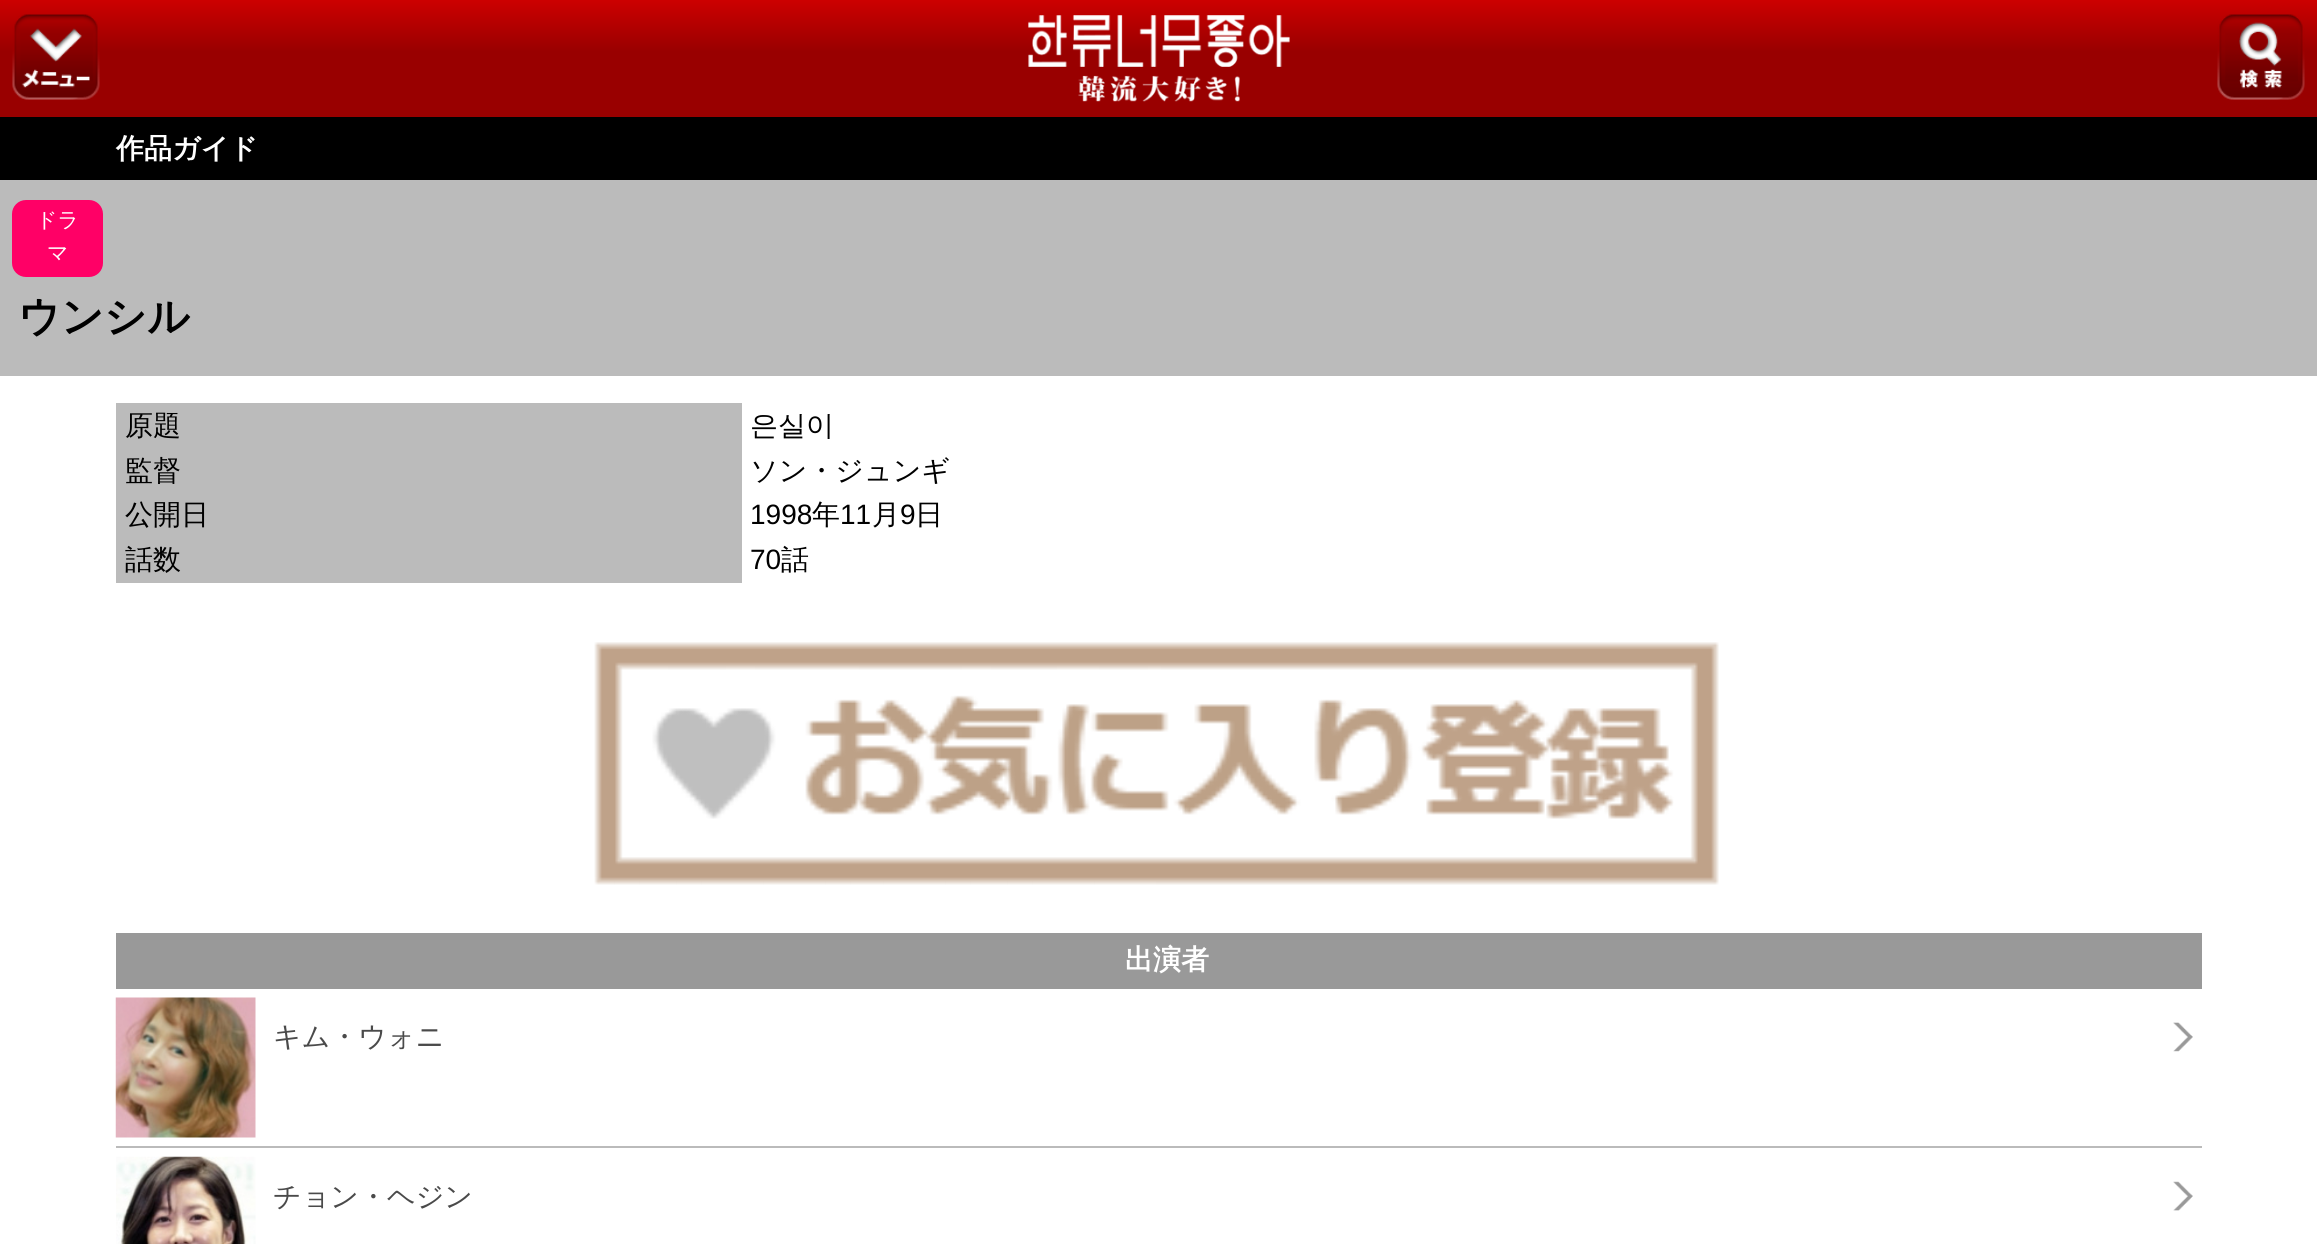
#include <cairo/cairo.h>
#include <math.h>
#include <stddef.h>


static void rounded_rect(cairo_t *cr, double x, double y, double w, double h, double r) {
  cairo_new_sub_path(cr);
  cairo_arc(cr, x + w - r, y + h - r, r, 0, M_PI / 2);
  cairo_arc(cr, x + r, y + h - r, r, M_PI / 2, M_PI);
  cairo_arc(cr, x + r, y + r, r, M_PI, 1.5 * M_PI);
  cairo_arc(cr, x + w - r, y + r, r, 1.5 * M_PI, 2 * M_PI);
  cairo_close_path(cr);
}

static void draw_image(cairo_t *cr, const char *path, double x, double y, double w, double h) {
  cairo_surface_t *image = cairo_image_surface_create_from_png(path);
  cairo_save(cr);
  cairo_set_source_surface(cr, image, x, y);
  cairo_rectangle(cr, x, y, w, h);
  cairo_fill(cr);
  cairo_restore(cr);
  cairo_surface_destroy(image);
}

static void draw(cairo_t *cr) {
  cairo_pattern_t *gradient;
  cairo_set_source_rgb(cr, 1, 1, 1);
  cairo_paint(cr);
  gradient = cairo_pattern_create_linear(1159, 0, 1159, 117);
  cairo_pattern_add_color_stop_rgba(gradient, 0, 204 / 255.0, 0, 0, 1);
  cairo_pattern_add_color_stop_rgba(gradient, 0.44, 153 / 255.0, 0, 0, 1);
  cairo_pattern_add_color_stop_rgba(gradient, 1, 153 / 255.0, 0, 0, 1);
  cairo_set_source(cr, gradient);
  cairo_pattern_destroy(gradient);
  cairo_rectangle(cr, 0, 0, 2317, 117);
  cairo_fill(cr);
  draw_image(cr, "images/1.png", 12, 14, 88, 86);
  draw_image(cr, "images/2.png", 1028, 15, 262, 87);
  draw_image(cr, "images/3.png", 2217, 14, 88, 86);
  cairo_set_source_rgb(cr, 0, 0, 0);
  cairo_rectangle(cr, 0, 117, 2317, 63);
  cairo_fill(cr);
  cairo_set_source_rgb(cr, 187 / 255.0, 187 / 255.0, 187 / 255.0);
  cairo_rectangle(cr, 0, 180, 2317, 196);
  cairo_fill(cr);
  cairo_set_source_rgb(cr, 1, 0, 102 / 255.0);
  rounded_rect(cr, 12, 200, 91, 77, 14);
  cairo_fill(cr);
  cairo_set_source_rgb(cr, 187 / 255.0, 187 / 255.0, 187 / 255.0);
  cairo_rectangle(cr, 116, 403, 626, 180);
  cairo_fill(cr);
  draw_image(cr, "images/4.png", 594, 642, 1125, 243);
  cairo_set_source_rgb(cr, 153 / 255.0, 153 / 255.0, 153 / 255.0);
  cairo_rectangle(cr, 116, 933, 2086, 56);
  cairo_fill(cr);
  cairo_set_source_rgb(cr, 187 / 255.0, 187 / 255.0, 187 / 255.0);
  cairo_rectangle(cr, 116, 1146, 2086, 2);
  cairo_fill(cr);
  draw_image(cr, "images/5.png", 115, 997, 141, 141);
  draw_image(cr, "images/6.png", 2173, 1022, 20, 30);
  draw_image(cr, "images/7.png", 116, 1156, 140, 88);
  draw_image(cr, "images/8.png", 2173, 1181, 20, 30);
  cairo_select_font_face(cr, "WenQuanYi Zen Hei", CAIRO_FONT_SLANT_NORMAL, CAIRO_FONT_WEIGHT_BOLD);
  cairo_set_font_size(cr, 28);
  cairo_set_source_rgb(cr, 1, 1, 1);
  cairo_move_to(cr, 116, 158);
  cairo_show_text(cr, "作品ガイド");
  cairo_select_font_face(cr, "WenQuanYi Zen Hei Medium", CAIRO_FONT_SLANT_NORMAL, CAIRO_FONT_WEIGHT_NORMAL);
  cairo_set_font_size(cr, 21);
  cairo_move_to(cr, 36, 227);
  cairo_show_text(cr, "ドラ");
  cairo_move_to(cr, 47, 260);
  cairo_show_text(cr, "マ");
  cairo_select_font_face(cr, "WenQuanYi Zen Hei", CAIRO_FONT_SLANT_NORMAL, CAIRO_FONT_WEIGHT_BOLD);
  cairo_set_font_size(cr, 42);
  cairo_set_source_rgb(cr, 0, 0, 0);
  cairo_move_to(cr, 18, 331);
  cairo_show_text(cr, "ウンシル");
  cairo_select_font_face(cr, "WenQuanYi Zen Hei Medium", CAIRO_FONT_SLANT_NORMAL, CAIRO_FONT_WEIGHT_NORMAL);
  cairo_set_font_size(cr, 28);
  cairo_move_to(cr, 125, 435);
  cairo_show_text(cr, "原題");
  cairo_move_to(cr, 750, 435);
  cairo_show_text(cr, "은실이");
  cairo_move_to(cr, 125, 480);
  cairo_show_text(cr, "監督");
  cairo_move_to(cr, 750, 480);
  cairo_show_text(cr, "ソン・ジュンギ");
  cairo_move_to(cr, 125, 524);
  cairo_show_text(cr, "公開日");
  cairo_select_font_face(cr, "Liberation Sans", CAIRO_FONT_SLANT_NORMAL, CAIRO_FONT_WEIGHT_NORMAL);
  cairo_move_to(cr, 750, 524);
  cairo_show_text(cr, "1998");
  cairo_select_font_face(cr, "WenQuanYi Zen Hei Medium", CAIRO_FONT_SLANT_NORMAL, CAIRO_FONT_WEIGHT_NORMAL);
  cairo_move_to(cr, 812, 524);
  cairo_show_text(cr, "年");
  cairo_select_font_face(cr, "Liberation Sans", CAIRO_FONT_SLANT_NORMAL, CAIRO_FONT_WEIGHT_NORMAL);
  cairo_move_to(cr, 840, 524);
  cairo_show_text(cr, "11");
  cairo_select_font_face(cr, "WenQuanYi Zen Hei Medium", CAIRO_FONT_SLANT_NORMAL, CAIRO_FONT_WEIGHT_NORMAL);
  cairo_move_to(cr, 872, 524);
  cairo_show_text(cr, "月");
  cairo_select_font_face(cr, "Liberation Sans", CAIRO_FONT_SLANT_NORMAL, CAIRO_FONT_WEIGHT_NORMAL);
  cairo_move_to(cr, 900, 524);
  cairo_show_text(cr, "9");
  cairo_select_font_face(cr, "WenQuanYi Zen Hei Medium", CAIRO_FONT_SLANT_NORMAL, CAIRO_FONT_WEIGHT_NORMAL);
  cairo_move_to(cr, 915, 524);
  cairo_show_text(cr, "日");
  cairo_move_to(cr, 125, 569);
  cairo_show_text(cr, "話数");
  cairo_select_font_face(cr, "Liberation Sans", CAIRO_FONT_SLANT_NORMAL, CAIRO_FONT_WEIGHT_NORMAL);
  cairo_move_to(cr, 750, 569);
  cairo_show_text(cr, "70");
  cairo_select_font_face(cr, "WenQuanYi Zen Hei Medium", CAIRO_FONT_SLANT_NORMAL, CAIRO_FONT_WEIGHT_NORMAL);
  cairo_move_to(cr, 781, 569);
  cairo_show_text(cr, "話");
  cairo_select_font_face(cr, "WenQuanYi Zen Hei", CAIRO_FONT_SLANT_NORMAL, CAIRO_FONT_WEIGHT_BOLD);
  cairo_set_source_rgb(cr, 1, 1, 1);
  cairo_move_to(cr, 1125, 969);
  cairo_show_text(cr, "出演者");
  cairo_select_font_face(cr, "WenQuanYi Zen Hei Medium", CAIRO_FONT_SLANT_NORMAL, CAIRO_FONT_WEIGHT_NORMAL);
  cairo_set_source_rgb(cr, 74 / 255.0, 74 / 255.0, 74 / 255.0);
  cairo_move_to(cr, 273, 1046);
  cairo_show_text(cr, "キム・ウォニ");
  cairo_move_to(cr, 273, 1206);
  cairo_show_text(cr, "チョン・ヘジン");
}

int main(void) {
  cairo_surface_t *surface = cairo_image_surface_create(CAIRO_FORMAT_RGB24, 2317, 1244);
  cairo_t *cr = cairo_create(surface);
  cairo_font_options_t *options = cairo_font_options_create();
  cairo_font_options_set_hint_metrics(options, CAIRO_HINT_METRICS_OFF);
  cairo_font_options_set_hint_style(options, CAIRO_HINT_STYLE_NONE);
  cairo_set_font_options(cr, options);
  cairo_set_miter_limit(cr, 4);
  draw(cr);
  cairo_surface_write_to_png(surface, "out.png");
  cairo_font_options_destroy(options);
  cairo_destroy(cr);
  cairo_surface_destroy(surface);
  return 0;
}
